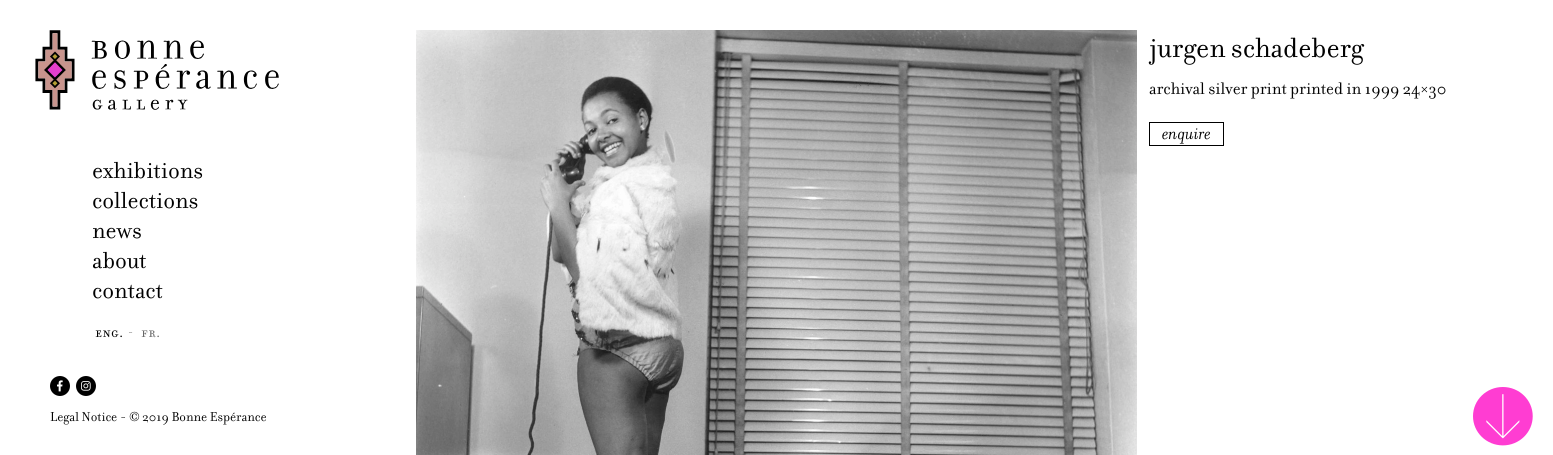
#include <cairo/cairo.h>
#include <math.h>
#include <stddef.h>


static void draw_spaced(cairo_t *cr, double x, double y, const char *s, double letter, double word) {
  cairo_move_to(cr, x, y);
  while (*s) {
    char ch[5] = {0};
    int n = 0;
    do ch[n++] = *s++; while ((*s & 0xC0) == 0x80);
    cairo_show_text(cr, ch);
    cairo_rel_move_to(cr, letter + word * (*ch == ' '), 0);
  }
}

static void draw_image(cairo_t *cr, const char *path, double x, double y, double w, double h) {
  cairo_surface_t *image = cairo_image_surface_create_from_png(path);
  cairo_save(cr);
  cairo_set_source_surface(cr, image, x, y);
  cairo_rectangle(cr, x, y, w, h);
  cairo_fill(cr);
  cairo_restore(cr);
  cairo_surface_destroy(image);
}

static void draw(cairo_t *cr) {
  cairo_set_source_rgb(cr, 1, 1, 1);
  cairo_paint(cr);
  draw_image(cr, "images/1.png", 416, 30, 721, 425);
  cairo_rectangle(cr, 1149.5, 122.5, 74, 23);
  cairo_set_source_rgb(cr, 0, 0, 0);
  cairo_set_line_width(cr, 1);
  cairo_stroke(cr);
  draw_image(cr, "images/2.png", 35, 30, 244, 80);
  cairo_arc(cr, 60, 386, 10, 0, 2 * M_PI);
  cairo_fill(cr);
  draw_image(cr, "images/3.png", 57, 380, 6, 12);
  cairo_arc(cr, 86, 386, 10, 0, 2 * M_PI);
  cairo_fill(cr);
  draw_image(cr, "images/4.png", 81, 381, 10, 10);
  draw_image(cr, "images/5.png", 1473, 387, 60, 59);
  cairo_select_font_face(cr, "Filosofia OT", CAIRO_FONT_SLANT_NORMAL, CAIRO_FONT_WEIGHT_NORMAL);
  cairo_set_font_size(cr, 30);
  cairo_move_to(cr, 1149, 57);
  cairo_show_text(cr, "jurgen schadeberg");
  cairo_set_font_size(cr, 18);
  cairo_move_to(cr, 1149, 94);
  cairo_show_text(cr, "archival silver print printed in 1999 24×30");
  cairo_select_font_face(cr, "Filosofia OT", CAIRO_FONT_SLANT_ITALIC, CAIRO_FONT_WEIGHT_NORMAL);
  cairo_move_to(cr, 1162, 139);
  cairo_show_text(cr, "enquire");
  cairo_select_font_face(cr, "Filosofia OT", CAIRO_FONT_SLANT_NORMAL, CAIRO_FONT_WEIGHT_NORMAL);
  cairo_set_font_size(cr, 25);
  cairo_move_to(cr, 92, 178);
  cairo_show_text(cr, "exhibitions");
  cairo_move_to(cr, 92, 208);
  cairo_show_text(cr, "collections");
  cairo_move_to(cr, 92, 238);
  cairo_show_text(cr, "news");
  cairo_move_to(cr, 92, 268);
  cairo_show_text(cr, "about");
  cairo_move_to(cr, 92, 298);
  cairo_show_text(cr, "contact");
  cairo_select_font_face(cr, "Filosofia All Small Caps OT", CAIRO_FONT_SLANT_NORMAL, CAIRO_FONT_WEIGHT_NORMAL);
  cairo_set_font_size(cr, 16);
  draw_spaced(cr, 95, 337, "ENG.", 0.5, 0);
  cairo_set_font_size(cr, 12);
  cairo_set_source_rgb(cr, 102 / 255.0, 102 / 255.0, 102 / 255.0);
  draw_spaced(cr, 128, 335, "-", 0.5, 0);
  cairo_set_font_size(cr, 16);
  draw_spaced(cr, 141, 337, "FR.", 0.5, 0);
  cairo_select_font_face(cr, "Filosofia OT", CAIRO_FONT_SLANT_NORMAL, CAIRO_FONT_WEIGHT_NORMAL);
  cairo_set_font_size(cr, 14);
  cairo_set_source_rgb(cr, 0, 0, 0);
  cairo_move_to(cr, 50, 421);
  cairo_show_text(cr, "Legal Notice");
  cairo_move_to(cr, 120, 421);
  cairo_show_text(cr, "- © 2019 Bonne Espérance");
}

int main(void) {
  cairo_surface_t *surface = cairo_image_surface_create(CAIRO_FORMAT_RGB24, 1553, 455);
  cairo_t *cr = cairo_create(surface);
  cairo_font_options_t *options = cairo_font_options_create();
  cairo_font_options_set_hint_metrics(options, CAIRO_HINT_METRICS_OFF);
  cairo_font_options_set_hint_style(options, CAIRO_HINT_STYLE_NONE);
  cairo_set_font_options(cr, options);
  cairo_set_miter_limit(cr, 4);
  draw(cr);
  cairo_surface_write_to_png(surface, "out.png");
  cairo_font_options_destroy(options);
  cairo_destroy(cr);
  cairo_surface_destroy(surface);
  return 0;
}
